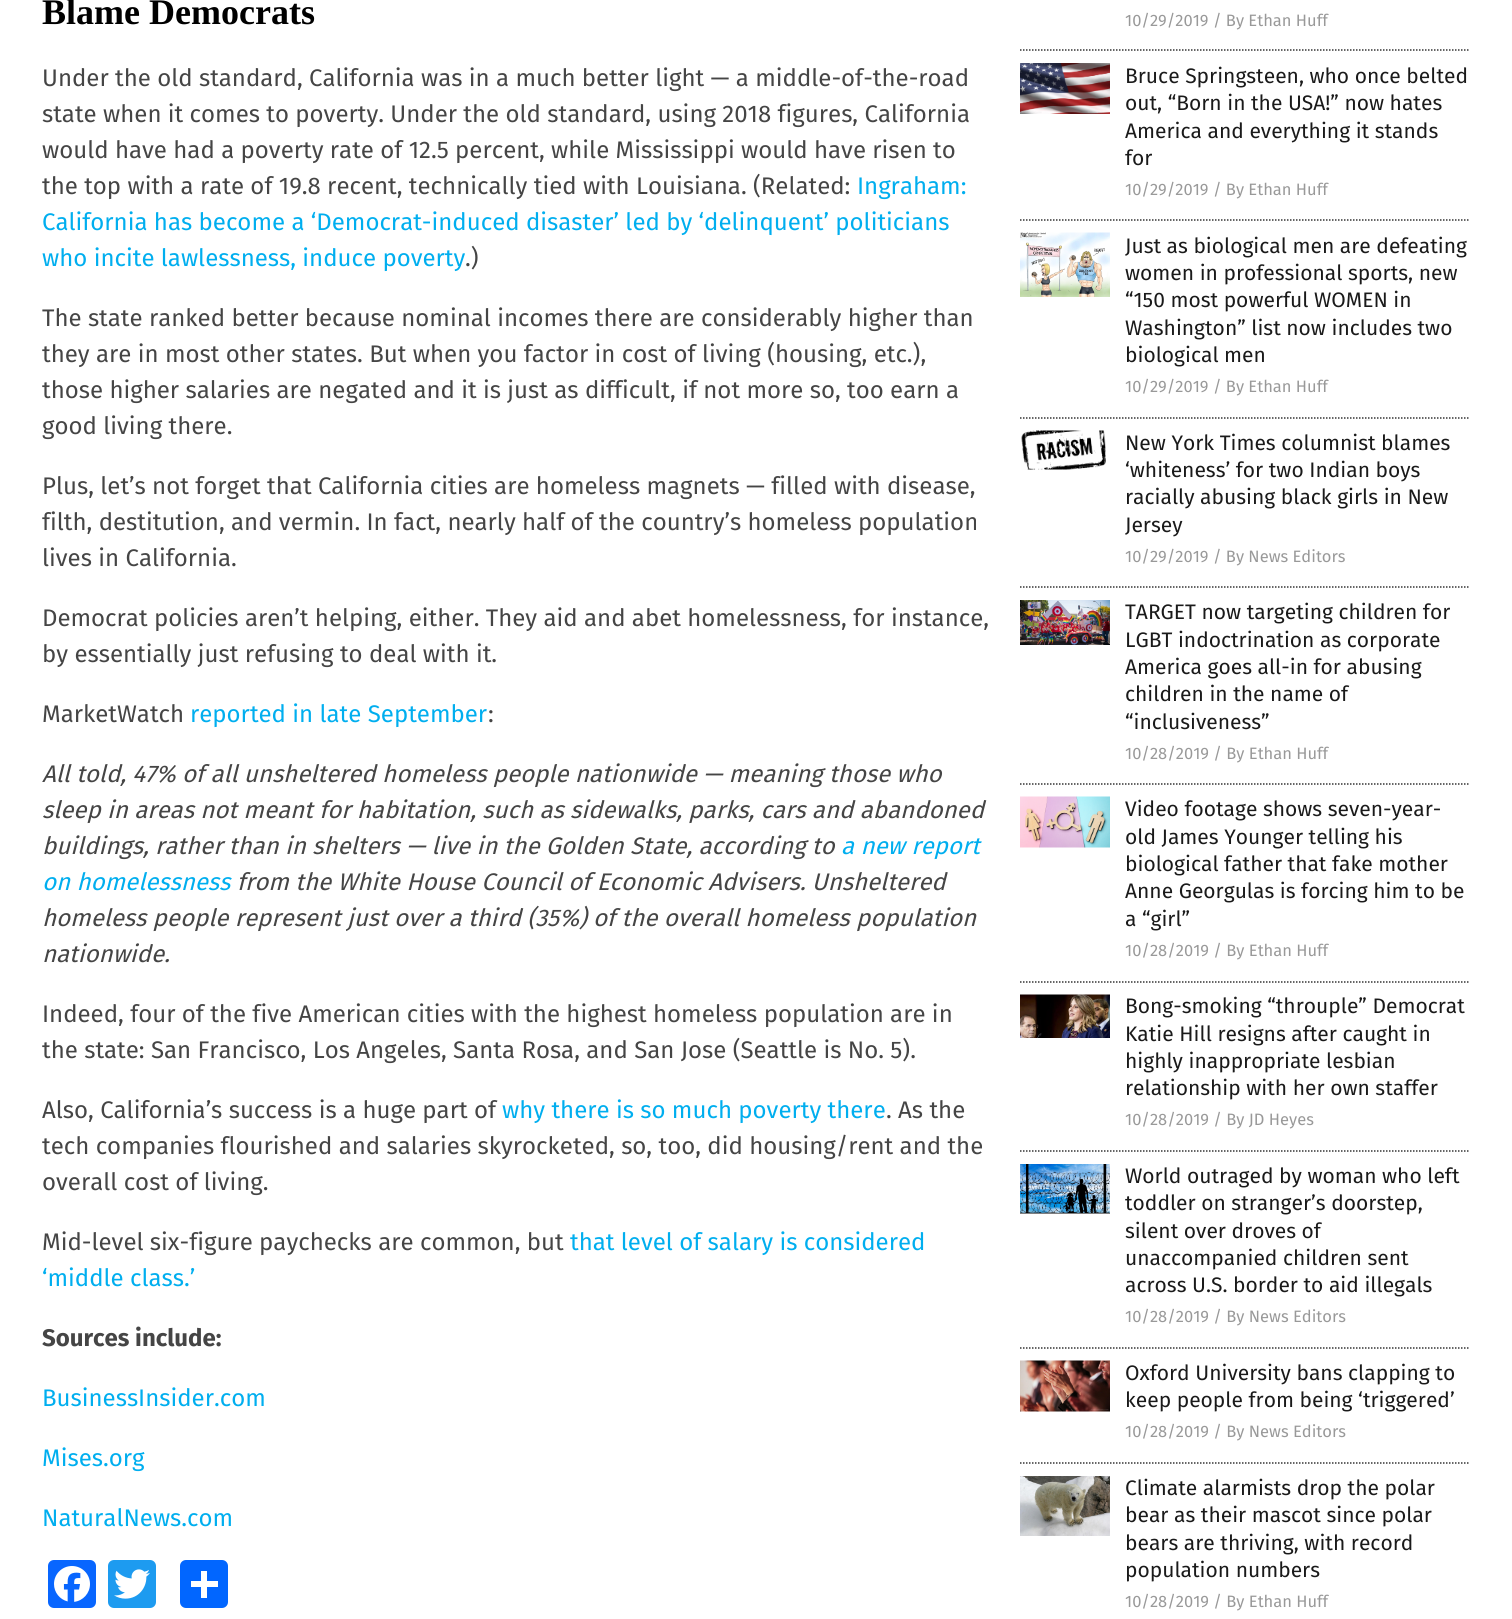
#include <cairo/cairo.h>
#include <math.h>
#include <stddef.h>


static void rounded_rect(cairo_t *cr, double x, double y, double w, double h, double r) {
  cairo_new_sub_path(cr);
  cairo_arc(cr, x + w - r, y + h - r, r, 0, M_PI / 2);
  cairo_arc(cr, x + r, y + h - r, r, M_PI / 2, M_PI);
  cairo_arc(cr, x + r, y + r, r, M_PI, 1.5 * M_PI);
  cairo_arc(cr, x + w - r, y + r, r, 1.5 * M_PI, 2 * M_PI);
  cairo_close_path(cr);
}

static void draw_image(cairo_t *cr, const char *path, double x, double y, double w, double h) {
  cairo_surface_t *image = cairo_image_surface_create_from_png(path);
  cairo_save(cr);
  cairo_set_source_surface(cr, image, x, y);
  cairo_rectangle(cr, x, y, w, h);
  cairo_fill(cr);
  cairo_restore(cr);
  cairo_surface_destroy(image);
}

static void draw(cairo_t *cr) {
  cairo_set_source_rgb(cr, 1, 1, 1);
  cairo_paint(cr);
  cairo_set_source_rgb(cr, 8 / 255.0, 102 / 255.0, 1);
  rounded_rect(cr, 48, 1560, 48, 48, 6);
  cairo_fill(cr);
  draw_image(cr, "images/1.png", 54, 1566, 36, 36);
  cairo_set_source_rgb(cr, 29 / 255.0, 155 / 255.0, 240 / 255.0);
  rounded_rect(cr, 108, 1560, 48, 48, 6);
  cairo_fill(cr);
  draw_image(cr, "images/2.png", 114, 1569, 36, 30);
  cairo_set_source_rgb(cr, 1 / 255.0, 102 / 255.0, 1);
  rounded_rect(cr, 180, 1560, 48, 48, 6);
  cairo_fill(cr);
  cairo_set_source_rgb(cr, 1, 1, 1);
  cairo_rectangle(cr, 201, 1571, 6, 27);
  cairo_fill(cr);
  cairo_rectangle(cr, 191, 1581, 27, 6);
  cairo_fill(cr);
  cairo_new_path(cr);
  cairo_move_to(cr, 1020, 50);
  cairo_line_to(cr, 1470, 50);
  cairo_set_source_rgb(cr, 52 / 255.0, 52 / 255.0, 52 / 255.0);
  cairo_set_line_width(cr, 1.5);
  cairo_set_dash(cr, (double[]){1.5, 1.5}, 2, 0);
  cairo_stroke(cr);
  cairo_new_path(cr);
  cairo_move_to(cr, 1020, 220);
  cairo_line_to(cr, 1470, 220);
  cairo_stroke(cr);
  draw_image(cr, "images/3.png", 1020, 63, 90, 51);
  cairo_new_path(cr);
  cairo_move_to(cr, 1020, 418);
  cairo_line_to(cr, 1470, 418);
  cairo_stroke(cr);
  draw_image(cr, "images/4.png", 1020, 232, 90, 65);
  cairo_new_path(cr);
  cairo_move_to(cr, 1020, 587);
  cairo_line_to(cr, 1470, 587);
  cairo_stroke(cr);
  draw_image(cr, "images/5.png", 1021, 430, 85, 40);
  cairo_new_path(cr);
  cairo_move_to(cr, 1020, 784);
  cairo_line_to(cr, 1470, 784);
  cairo_stroke(cr);
  draw_image(cr, "images/6.png", 1020, 600, 90, 45);
  cairo_new_path(cr);
  cairo_move_to(cr, 1020, 982);
  cairo_line_to(cr, 1470, 982);
  cairo_stroke(cr);
  draw_image(cr, "images/7.png", 1020, 796, 90, 52);
  cairo_new_path(cr);
  cairo_move_to(cr, 1020, 1151);
  cairo_line_to(cr, 1470, 1151);
  cairo_stroke(cr);
  draw_image(cr, "images/8.png", 1020, 994, 90, 44);
  cairo_new_path(cr);
  cairo_move_to(cr, 1020, 1348);
  cairo_line_to(cr, 1470, 1348);
  cairo_stroke(cr);
  draw_image(cr, "images/9.png", 1020, 1164, 90, 50);
  cairo_new_path(cr);
  cairo_move_to(cr, 1020, 1463);
  cairo_line_to(cr, 1470, 1463);
  cairo_stroke(cr);
  draw_image(cr, "images/10.png", 1020, 1360, 90, 52);
  draw_image(cr, "images/11.png", 1020, 1476, 90, 60);
  cairo_select_font_face(cr, "Liberation Serif", CAIRO_FONT_SLANT_NORMAL, CAIRO_FONT_WEIGHT_BOLD);
  cairo_set_font_size(cr, 36);
  cairo_set_source_rgb(cr, 0, 0, 0);
  cairo_move_to(cr, 42, 24);
  cairo_show_text(cr, "Blame Democrats");
  cairo_select_font_face(cr, "Fira Sans", CAIRO_FONT_SLANT_NORMAL, CAIRO_FONT_WEIGHT_NORMAL);
  cairo_set_font_size(cr, 24);
  cairo_set_source_rgb(cr, 69 / 255.0, 69 / 255.0, 69 / 255.0);
  cairo_move_to(cr, 42, 86);
  cairo_show_text(cr, "Under the old standard, California was in a much better light — a middle-of-the-road");
  cairo_move_to(cr, 42, 122);
  cairo_show_text(cr, "state when it comes to poverty. Under the old standard, using 2018 figures, California");
  cairo_move_to(cr, 42, 158);
  cairo_show_text(cr, "would have had a poverty rate of 12.5 percent, while Mississippi would have risen to");
  cairo_move_to(cr, 42, 194);
  cairo_show_text(cr, "the top with a rate of 19.8 recent, technically tied with Louisiana. (Related:");
  cairo_set_source_rgb(cr, 0, 174 / 255.0, 239 / 255.0);
  cairo_move_to(cr, 857, 194);
  cairo_show_text(cr, "Ingraham:");
  cairo_move_to(cr, 42, 230);
  cairo_show_text(cr, "California has become a ‘Democrat-induced disaster’ led by ‘delinquent’ politicians");
  cairo_move_to(cr, 42, 266);
  cairo_show_text(cr, "who incite lawlessness, induce poverty");
  cairo_set_source_rgb(cr, 69 / 255.0, 69 / 255.0, 69 / 255.0);
  cairo_move_to(cr, 465, 266);
  cairo_show_text(cr, ".)");
  cairo_move_to(cr, 42, 326);
  cairo_show_text(cr, "The state ranked better because nominal incomes there are considerably higher than");
  cairo_move_to(cr, 42, 362);
  cairo_show_text(cr, "they are in most other states. But when you factor in cost of living (housing, etc.),");
  cairo_move_to(cr, 42, 398);
  cairo_show_text(cr, "those higher salaries are negated and it is just as difficult, if not more so, too earn a");
  cairo_move_to(cr, 42, 434);
  cairo_show_text(cr, "good living there.");
  cairo_move_to(cr, 42, 494);
  cairo_show_text(cr, "Plus, let’s not forget that California cities are homeless magnets — filled with disease,");
  cairo_move_to(cr, 42, 530);
  cairo_show_text(cr, "filth, destitution, and vermin. In fact, nearly half of the country’s homeless population");
  cairo_move_to(cr, 42, 566);
  cairo_show_text(cr, "lives in California.");
  cairo_move_to(cr, 42, 626);
  cairo_show_text(cr, "Democrat policies aren’t helping, either. They aid and abet homelessness, for instance,");
  cairo_move_to(cr, 42, 662);
  cairo_show_text(cr, "by essentially just refusing to deal with it.");
  cairo_move_to(cr, 42, 722);
  cairo_show_text(cr, "MarketWatch");
  cairo_set_source_rgb(cr, 0, 174 / 255.0, 239 / 255.0);
  cairo_move_to(cr, 190, 722);
  cairo_show_text(cr, "reported in late September");
  cairo_set_source_rgb(cr, 69 / 255.0, 69 / 255.0, 69 / 255.0);
  cairo_move_to(cr, 488, 722);
  cairo_show_text(cr, ":");
  cairo_select_font_face(cr, "Fira Sans", CAIRO_FONT_SLANT_ITALIC, CAIRO_FONT_WEIGHT_NORMAL);
  cairo_move_to(cr, 42, 782);
  cairo_show_text(cr, "All told, 47% of all unsheltered homeless people nationwide — meaning those who");
  cairo_move_to(cr, 42, 818);
  cairo_show_text(cr, "sleep in areas not meant for habitation, such as sidewalks, parks, cars and abandoned");
  cairo_move_to(cr, 42, 854);
  cairo_show_text(cr, "buildings, rather than in shelters — live in the Golden State, according to");
  cairo_set_source_rgb(cr, 0, 174 / 255.0, 239 / 255.0);
  cairo_move_to(cr, 841, 854);
  cairo_show_text(cr, "a new report");
  cairo_move_to(cr, 42, 890);
  cairo_show_text(cr, "on homelessness");
  cairo_set_source_rgb(cr, 69 / 255.0, 69 / 255.0, 69 / 255.0);
  cairo_move_to(cr, 237, 890);
  cairo_show_text(cr, "from the White House Council of Economic Advisers. Unsheltered");
  cairo_move_to(cr, 42, 926);
  cairo_show_text(cr, "homeless people represent just over a third (35%) of the overall homeless population");
  cairo_move_to(cr, 42, 962);
  cairo_show_text(cr, "nationwide.");
  cairo_select_font_face(cr, "Fira Sans", CAIRO_FONT_SLANT_NORMAL, CAIRO_FONT_WEIGHT_NORMAL);
  cairo_move_to(cr, 42, 1022);
  cairo_show_text(cr, "Indeed, four of the five American cities with the highest homeless population are in");
  cairo_move_to(cr, 42, 1058);
  cairo_show_text(cr, "the state: San Francisco, Los Angeles, Santa Rosa, and San Jose (Seattle is No. 5).");
  cairo_move_to(cr, 42, 1118);
  cairo_show_text(cr, "Also, California’s success is a huge part of");
  cairo_set_source_rgb(cr, 0, 174 / 255.0, 239 / 255.0);
  cairo_move_to(cr, 502, 1118);
  cairo_show_text(cr, "why there is so much poverty there");
  cairo_set_source_rgb(cr, 69 / 255.0, 69 / 255.0, 69 / 255.0);
  cairo_move_to(cr, 886, 1118);
  cairo_show_text(cr, ". As the");
  cairo_move_to(cr, 42, 1154);
  cairo_show_text(cr, "tech companies flourished and salaries skyrocketed, so, too, did housing/rent and the");
  cairo_move_to(cr, 42, 1190);
  cairo_show_text(cr, "overall cost of living.");
  cairo_move_to(cr, 42, 1250);
  cairo_show_text(cr, "Mid-level six-figure paychecks are common, but");
  cairo_set_source_rgb(cr, 0, 174 / 255.0, 239 / 255.0);
  cairo_move_to(cr, 570, 1250);
  cairo_show_text(cr, "that level of salary is considered");
  cairo_move_to(cr, 42, 1286);
  cairo_show_text(cr, "‘middle class.’");
  cairo_select_font_face(cr, "Fira Sans", CAIRO_FONT_SLANT_NORMAL, CAIRO_FONT_WEIGHT_BOLD);
  cairo_set_source_rgb(cr, 69 / 255.0, 69 / 255.0, 69 / 255.0);
  cairo_move_to(cr, 42, 1346);
  cairo_show_text(cr, "Sources include:");
  cairo_select_font_face(cr, "Fira Sans", CAIRO_FONT_SLANT_NORMAL, CAIRO_FONT_WEIGHT_NORMAL);
  cairo_set_source_rgb(cr, 0, 174 / 255.0, 239 / 255.0);
  cairo_move_to(cr, 42, 1406);
  cairo_show_text(cr, "BusinessInsider.com");
  cairo_move_to(cr, 42, 1466);
  cairo_show_text(cr, "Mises.org");
  cairo_move_to(cr, 42, 1526);
  cairo_show_text(cr, "NaturalNews.com");
  cairo_set_font_size(cr, 16.5);
  cairo_set_source_rgb(cr, 153 / 255.0, 153 / 255.0, 153 / 255.0);
  cairo_move_to(cr, 1125, 26);
  cairo_show_text(cr, "10/29/2019 / By Ethan Huff");
  cairo_set_font_size(cr, 21);
  cairo_set_source_rgb(cr, 26 / 255.0, 26 / 255.0, 26 / 255.0);
  cairo_move_to(cr, 1125, 83);
  cairo_show_text(cr, "Bruce Springsteen, who once belted");
  cairo_move_to(cr, 1125, 110);
  cairo_show_text(cr, "out, “Born in the USA!” now hates");
  cairo_move_to(cr, 1125, 138);
  cairo_show_text(cr, "America and everything it stands");
  cairo_move_to(cr, 1125, 165);
  cairo_show_text(cr, "for");
  cairo_set_font_size(cr, 16.5);
  cairo_set_source_rgb(cr, 153 / 255.0, 153 / 255.0, 153 / 255.0);
  cairo_move_to(cr, 1125, 195);
  cairo_show_text(cr, "10/29/2019 / By Ethan Huff");
  cairo_set_font_size(cr, 21);
  cairo_set_source_rgb(cr, 26 / 255.0, 26 / 255.0, 26 / 255.0);
  cairo_move_to(cr, 1125, 253);
  cairo_show_text(cr, "Just as biological men are defeating");
  cairo_move_to(cr, 1125, 280);
  cairo_show_text(cr, "women in professional sports, new");
  cairo_move_to(cr, 1125, 307);
  cairo_show_text(cr, "“150 most powerful WOMEN in");
  cairo_move_to(cr, 1125, 335);
  cairo_show_text(cr, "Washington” list now includes two");
  cairo_move_to(cr, 1125, 362);
  cairo_show_text(cr, "biological men");
  cairo_set_font_size(cr, 16.5);
  cairo_set_source_rgb(cr, 153 / 255.0, 153 / 255.0, 153 / 255.0);
  cairo_move_to(cr, 1125, 392);
  cairo_show_text(cr, "10/29/2019 / By Ethan Huff");
  cairo_set_font_size(cr, 21);
  cairo_set_source_rgb(cr, 26 / 255.0, 26 / 255.0, 26 / 255.0);
  cairo_move_to(cr, 1125, 450);
  cairo_show_text(cr, "New York Times columnist blames");
  cairo_move_to(cr, 1125, 477);
  cairo_show_text(cr, "‘whiteness’ for two Indian boys");
  cairo_move_to(cr, 1125, 504);
  cairo_show_text(cr, "racially abusing black girls in New");
  cairo_move_to(cr, 1125, 532);
  cairo_show_text(cr, "Jersey");
  cairo_set_font_size(cr, 16.5);
  cairo_set_source_rgb(cr, 153 / 255.0, 153 / 255.0, 153 / 255.0);
  cairo_move_to(cr, 1125, 562);
  cairo_show_text(cr, "10/29/2019 / By News Editors");
  cairo_set_font_size(cr, 21);
  cairo_set_source_rgb(cr, 26 / 255.0, 26 / 255.0, 26 / 255.0);
  cairo_move_to(cr, 1125, 619);
  cairo_show_text(cr, "TARGET now targeting children for");
  cairo_move_to(cr, 1125, 647);
  cairo_show_text(cr, "LGBT indoctrination as corporate");
  cairo_move_to(cr, 1125, 674);
  cairo_show_text(cr, "America goes all-in for abusing");
  cairo_move_to(cr, 1125, 701);
  cairo_show_text(cr, "children in the name of");
  cairo_move_to(cr, 1125, 729);
  cairo_show_text(cr, "“inclusiveness”");
  cairo_set_font_size(cr, 16.5);
  cairo_set_source_rgb(cr, 153 / 255.0, 153 / 255.0, 153 / 255.0);
  cairo_move_to(cr, 1125, 759);
  cairo_show_text(cr, "10/28/2019 / By Ethan Huff");
  cairo_set_font_size(cr, 21);
  cairo_set_source_rgb(cr, 26 / 255.0, 26 / 255.0, 26 / 255.0);
  cairo_move_to(cr, 1125, 816);
  cairo_show_text(cr, "Video footage shows seven-year-");
  cairo_move_to(cr, 1125, 844);
  cairo_show_text(cr, "old James Younger telling his");
  cairo_move_to(cr, 1125, 871);
  cairo_show_text(cr, "biological father that fake mother");
  cairo_move_to(cr, 1125, 898);
  cairo_show_text(cr, "Anne Georgulas is forcing him to be");
  cairo_move_to(cr, 1125, 926);
  cairo_show_text(cr, "a “girl”");
  cairo_set_font_size(cr, 16.5);
  cairo_set_source_rgb(cr, 153 / 255.0, 153 / 255.0, 153 / 255.0);
  cairo_move_to(cr, 1125, 956);
  cairo_show_text(cr, "10/28/2019 / By Ethan Huff");
  cairo_set_font_size(cr, 21);
  cairo_set_source_rgb(cr, 26 / 255.0, 26 / 255.0, 26 / 255.0);
  cairo_move_to(cr, 1125, 1013);
  cairo_show_text(cr, "Bong-smoking “throuple” Democrat");
  cairo_move_to(cr, 1125, 1041);
  cairo_show_text(cr, "Katie Hill resigns after caught in");
  cairo_move_to(cr, 1125, 1068);
  cairo_show_text(cr, "highly inappropriate lesbian");
  cairo_move_to(cr, 1125, 1095);
  cairo_show_text(cr, "relationship with her own staffer");
  cairo_set_font_size(cr, 16.5);
  cairo_set_source_rgb(cr, 153 / 255.0, 153 / 255.0, 153 / 255.0);
  cairo_move_to(cr, 1125, 1125);
  cairo_show_text(cr, "10/28/2019 / By JD Heyes");
  cairo_set_font_size(cr, 21);
  cairo_set_source_rgb(cr, 26 / 255.0, 26 / 255.0, 26 / 255.0);
  cairo_move_to(cr, 1125, 1183);
  cairo_show_text(cr, "World outraged by woman who left");
  cairo_move_to(cr, 1125, 1210);
  cairo_show_text(cr, "toddler on stranger’s doorstep,");
  cairo_move_to(cr, 1125, 1238);
  cairo_show_text(cr, "silent over droves of");
  cairo_move_to(cr, 1125, 1265);
  cairo_show_text(cr, "unaccompanied children sent");
  cairo_move_to(cr, 1125, 1292);
  cairo_show_text(cr, "across U.S. border to aid illegals");
  cairo_set_font_size(cr, 16.5);
  cairo_set_source_rgb(cr, 153 / 255.0, 153 / 255.0, 153 / 255.0);
  cairo_move_to(cr, 1125, 1322);
  cairo_show_text(cr, "10/28/2019 / By News Editors");
  cairo_set_font_size(cr, 21);
  cairo_set_source_rgb(cr, 26 / 255.0, 26 / 255.0, 26 / 255.0);
  cairo_move_to(cr, 1125, 1380);
  cairo_show_text(cr, "Oxford University bans clapping to");
  cairo_move_to(cr, 1125, 1407);
  cairo_show_text(cr, "keep people from being ‘triggered’");
  cairo_set_font_size(cr, 16.5);
  cairo_set_source_rgb(cr, 153 / 255.0, 153 / 255.0, 153 / 255.0);
  cairo_move_to(cr, 1125, 1437);
  cairo_show_text(cr, "10/28/2019 / By News Editors");
  cairo_set_font_size(cr, 21);
  cairo_set_source_rgb(cr, 26 / 255.0, 26 / 255.0, 26 / 255.0);
  cairo_move_to(cr, 1125, 1495);
  cairo_show_text(cr, "Climate alarmists drop the polar");
  cairo_move_to(cr, 1125, 1522);
  cairo_show_text(cr, "bear as their mascot since polar");
  cairo_move_to(cr, 1125, 1550);
  cairo_show_text(cr, "bears are thriving, with record");
  cairo_move_to(cr, 1125, 1577);
  cairo_show_text(cr, "population numbers");
  cairo_set_font_size(cr, 16.5);
  cairo_set_source_rgb(cr, 153 / 255.0, 153 / 255.0, 153 / 255.0);
  cairo_move_to(cr, 1125, 1607);
  cairo_show_text(cr, "10/28/2019 / By Ethan Huff");
}

int main(void) {
  cairo_surface_t *surface = cairo_image_surface_create(CAIRO_FORMAT_RGB24, 1512, 1619);
  cairo_t *cr = cairo_create(surface);
  cairo_font_options_t *options = cairo_font_options_create();
  cairo_font_options_set_hint_metrics(options, CAIRO_HINT_METRICS_OFF);
  cairo_font_options_set_hint_style(options, CAIRO_HINT_STYLE_NONE);
  cairo_set_font_options(cr, options);
  cairo_set_miter_limit(cr, 4);
  draw(cr);
  cairo_surface_write_to_png(surface, "out.png");
  cairo_font_options_destroy(options);
  cairo_destroy(cr);
  cairo_surface_destroy(surface);
  return 0;
}
